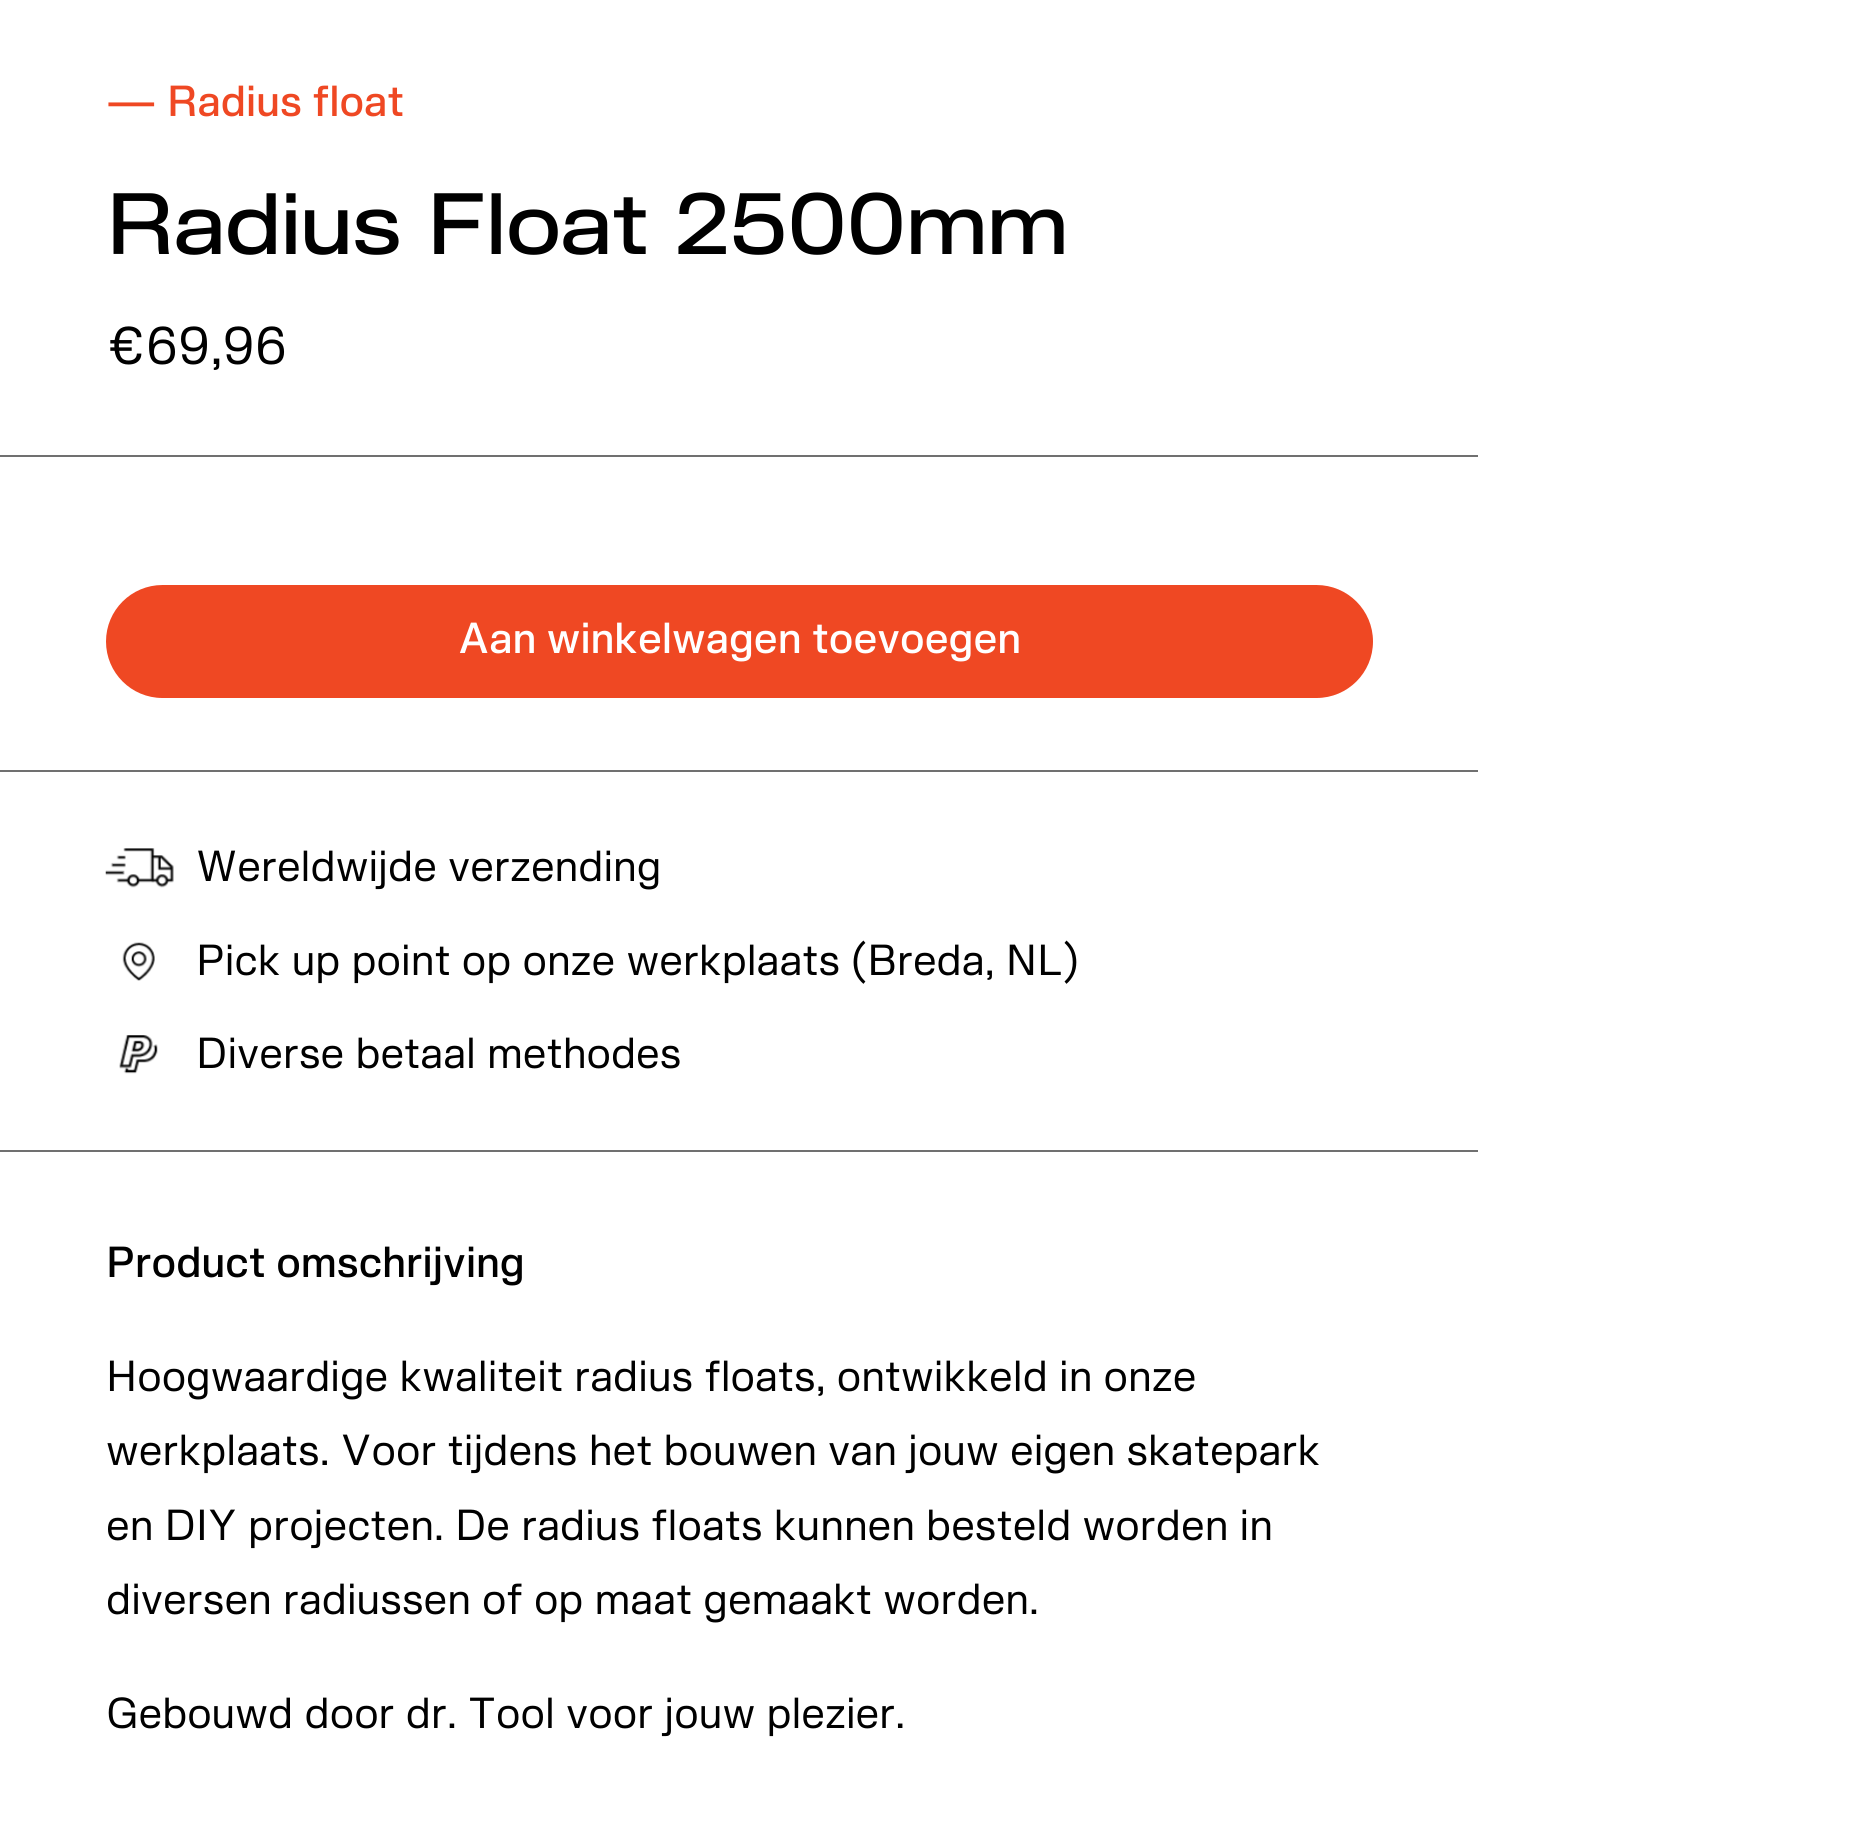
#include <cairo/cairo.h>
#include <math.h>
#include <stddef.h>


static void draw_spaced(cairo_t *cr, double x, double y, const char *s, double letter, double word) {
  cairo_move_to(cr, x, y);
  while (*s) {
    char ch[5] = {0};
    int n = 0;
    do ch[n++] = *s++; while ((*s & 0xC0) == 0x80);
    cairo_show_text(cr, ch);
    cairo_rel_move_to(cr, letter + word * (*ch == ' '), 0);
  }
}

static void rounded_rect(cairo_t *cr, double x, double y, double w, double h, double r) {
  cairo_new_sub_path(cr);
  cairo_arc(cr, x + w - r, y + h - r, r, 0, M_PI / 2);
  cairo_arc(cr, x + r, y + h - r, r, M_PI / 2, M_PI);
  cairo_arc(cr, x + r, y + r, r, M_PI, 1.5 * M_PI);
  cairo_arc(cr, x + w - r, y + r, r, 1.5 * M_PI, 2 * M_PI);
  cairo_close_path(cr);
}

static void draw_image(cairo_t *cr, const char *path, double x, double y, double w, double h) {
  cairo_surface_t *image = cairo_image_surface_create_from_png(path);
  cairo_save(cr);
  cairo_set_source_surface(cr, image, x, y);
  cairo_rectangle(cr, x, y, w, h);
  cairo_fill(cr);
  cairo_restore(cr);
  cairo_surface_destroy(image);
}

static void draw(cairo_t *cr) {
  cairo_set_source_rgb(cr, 1, 1, 1);
  cairo_paint(cr);
  cairo_set_source_rgb(cr, 112 / 255.0, 112 / 255.0, 112 / 255.0);
  cairo_rectangle(cr, 0, 455, 1478, 2);
  cairo_fill(cr);
  cairo_set_source_rgb(cr, 239 / 255.0, 72 / 255.0, 35 / 255.0);
  rounded_rect(cr, 106, 585, 1267, 113, 56.5);
  cairo_fill(cr);
  cairo_set_source_rgb(cr, 112 / 255.0, 112 / 255.0, 112 / 255.0);
  cairo_rectangle(cr, 0, 770, 1478, 2);
  cairo_fill(cr);
  draw_image(cr, "images/1.png", 105, 848, 69, 40);
  draw_image(cr, "images/2.png", 122, 942, 33, 39);
  draw_image(cr, "images/3.png", 119, 1035, 39, 39);
  cairo_rectangle(cr, 0, 1150, 1478, 2);
  cairo_fill(cr);
  cairo_select_font_face(cr, "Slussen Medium", CAIRO_FONT_SLANT_NORMAL, CAIRO_FONT_WEIGHT_NORMAL);
  cairo_set_font_size(cr, 40.5);
  cairo_set_source_rgb(cr, 239 / 255.0, 72 / 255.0, 35 / 255.0);
  cairo_move_to(cr, 106, 116);
  cairo_show_text(cr, "― Radius float");
  cairo_select_font_face(cr, "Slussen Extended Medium", CAIRO_FONT_SLANT_NORMAL, CAIRO_FONT_WEIGHT_NORMAL);
  cairo_set_font_size(cr, 81);
  cairo_set_source_rgb(cr, 0, 0, 0);
  draw_spaced(cr, 106, 254, "Radius Float 2500mm", -1.25, 0);
  cairo_select_font_face(cr, "Slussen", CAIRO_FONT_SLANT_NORMAL, CAIRO_FONT_WEIGHT_NORMAL);
  cairo_set_font_size(cr, 49.5);
  cairo_move_to(cr, 106, 364);
  cairo_show_text(cr, "€69,96");
  cairo_select_font_face(cr, "Slussen Medium", CAIRO_FONT_SLANT_NORMAL, CAIRO_FONT_WEIGHT_NORMAL);
  cairo_set_font_size(cr, 40.5);
  cairo_set_source_rgb(cr, 1, 1, 1);
  cairo_move_to(cr, 458, 653);
  cairo_show_text(cr, "Aan winkelwagen toevoegen");
  cairo_select_font_face(cr, "Slussen", CAIRO_FONT_SLANT_NORMAL, CAIRO_FONT_WEIGHT_NORMAL);
  cairo_set_source_rgb(cr, 0, 0, 0);
  cairo_move_to(cr, 196, 881);
  cairo_show_text(cr, "Wereldwijde verzending");
  cairo_move_to(cr, 196, 975);
  cairo_show_text(cr, "Pick up point op onze werkplaats (Breda, NL)");
  cairo_move_to(cr, 196, 1068);
  cairo_show_text(cr, "Diverse betaal methodes");
  cairo_select_font_face(cr, "Slussen Medium", CAIRO_FONT_SLANT_NORMAL, CAIRO_FONT_WEIGHT_NORMAL);
  cairo_move_to(cr, 106, 1277);
  cairo_show_text(cr, "Product omschrijving");
  cairo_select_font_face(cr, "Slussen", CAIRO_FONT_SLANT_NORMAL, CAIRO_FONT_WEIGHT_NORMAL);
  cairo_move_to(cr, 106, 1391);
  cairo_show_text(cr, "Hoogwaardige kwaliteit radius floats, ontwikkeld in onze");
  cairo_move_to(cr, 106, 1465);
  cairo_show_text(cr, "werkplaats. Voor tijdens het bouwen van jouw eigen skatepark");
  cairo_move_to(cr, 106, 1540);
  cairo_show_text(cr, "en DIY projecten. De radius floats kunnen besteld worden in");
  cairo_move_to(cr, 106, 1614);
  cairo_show_text(cr, "diversen radiussen of op maat gemaakt worden.");
  cairo_move_to(cr, 106, 1728);
  cairo_show_text(cr, "Gebouwd door dr. Tool voor jouw plezier.");
}

int main(void) {
  cairo_surface_t *surface = cairo_image_surface_create(CAIRO_FORMAT_RGB24, 1858, 1824);
  cairo_t *cr = cairo_create(surface);
  cairo_font_options_t *options = cairo_font_options_create();
  cairo_font_options_set_hint_metrics(options, CAIRO_HINT_METRICS_OFF);
  cairo_font_options_set_hint_style(options, CAIRO_HINT_STYLE_NONE);
  cairo_set_font_options(cr, options);
  cairo_set_miter_limit(cr, 4);
  draw(cr);
  cairo_surface_write_to_png(surface, "out.png");
  cairo_font_options_destroy(options);
  cairo_destroy(cr);
  cairo_surface_destroy(surface);
  return 0;
}
